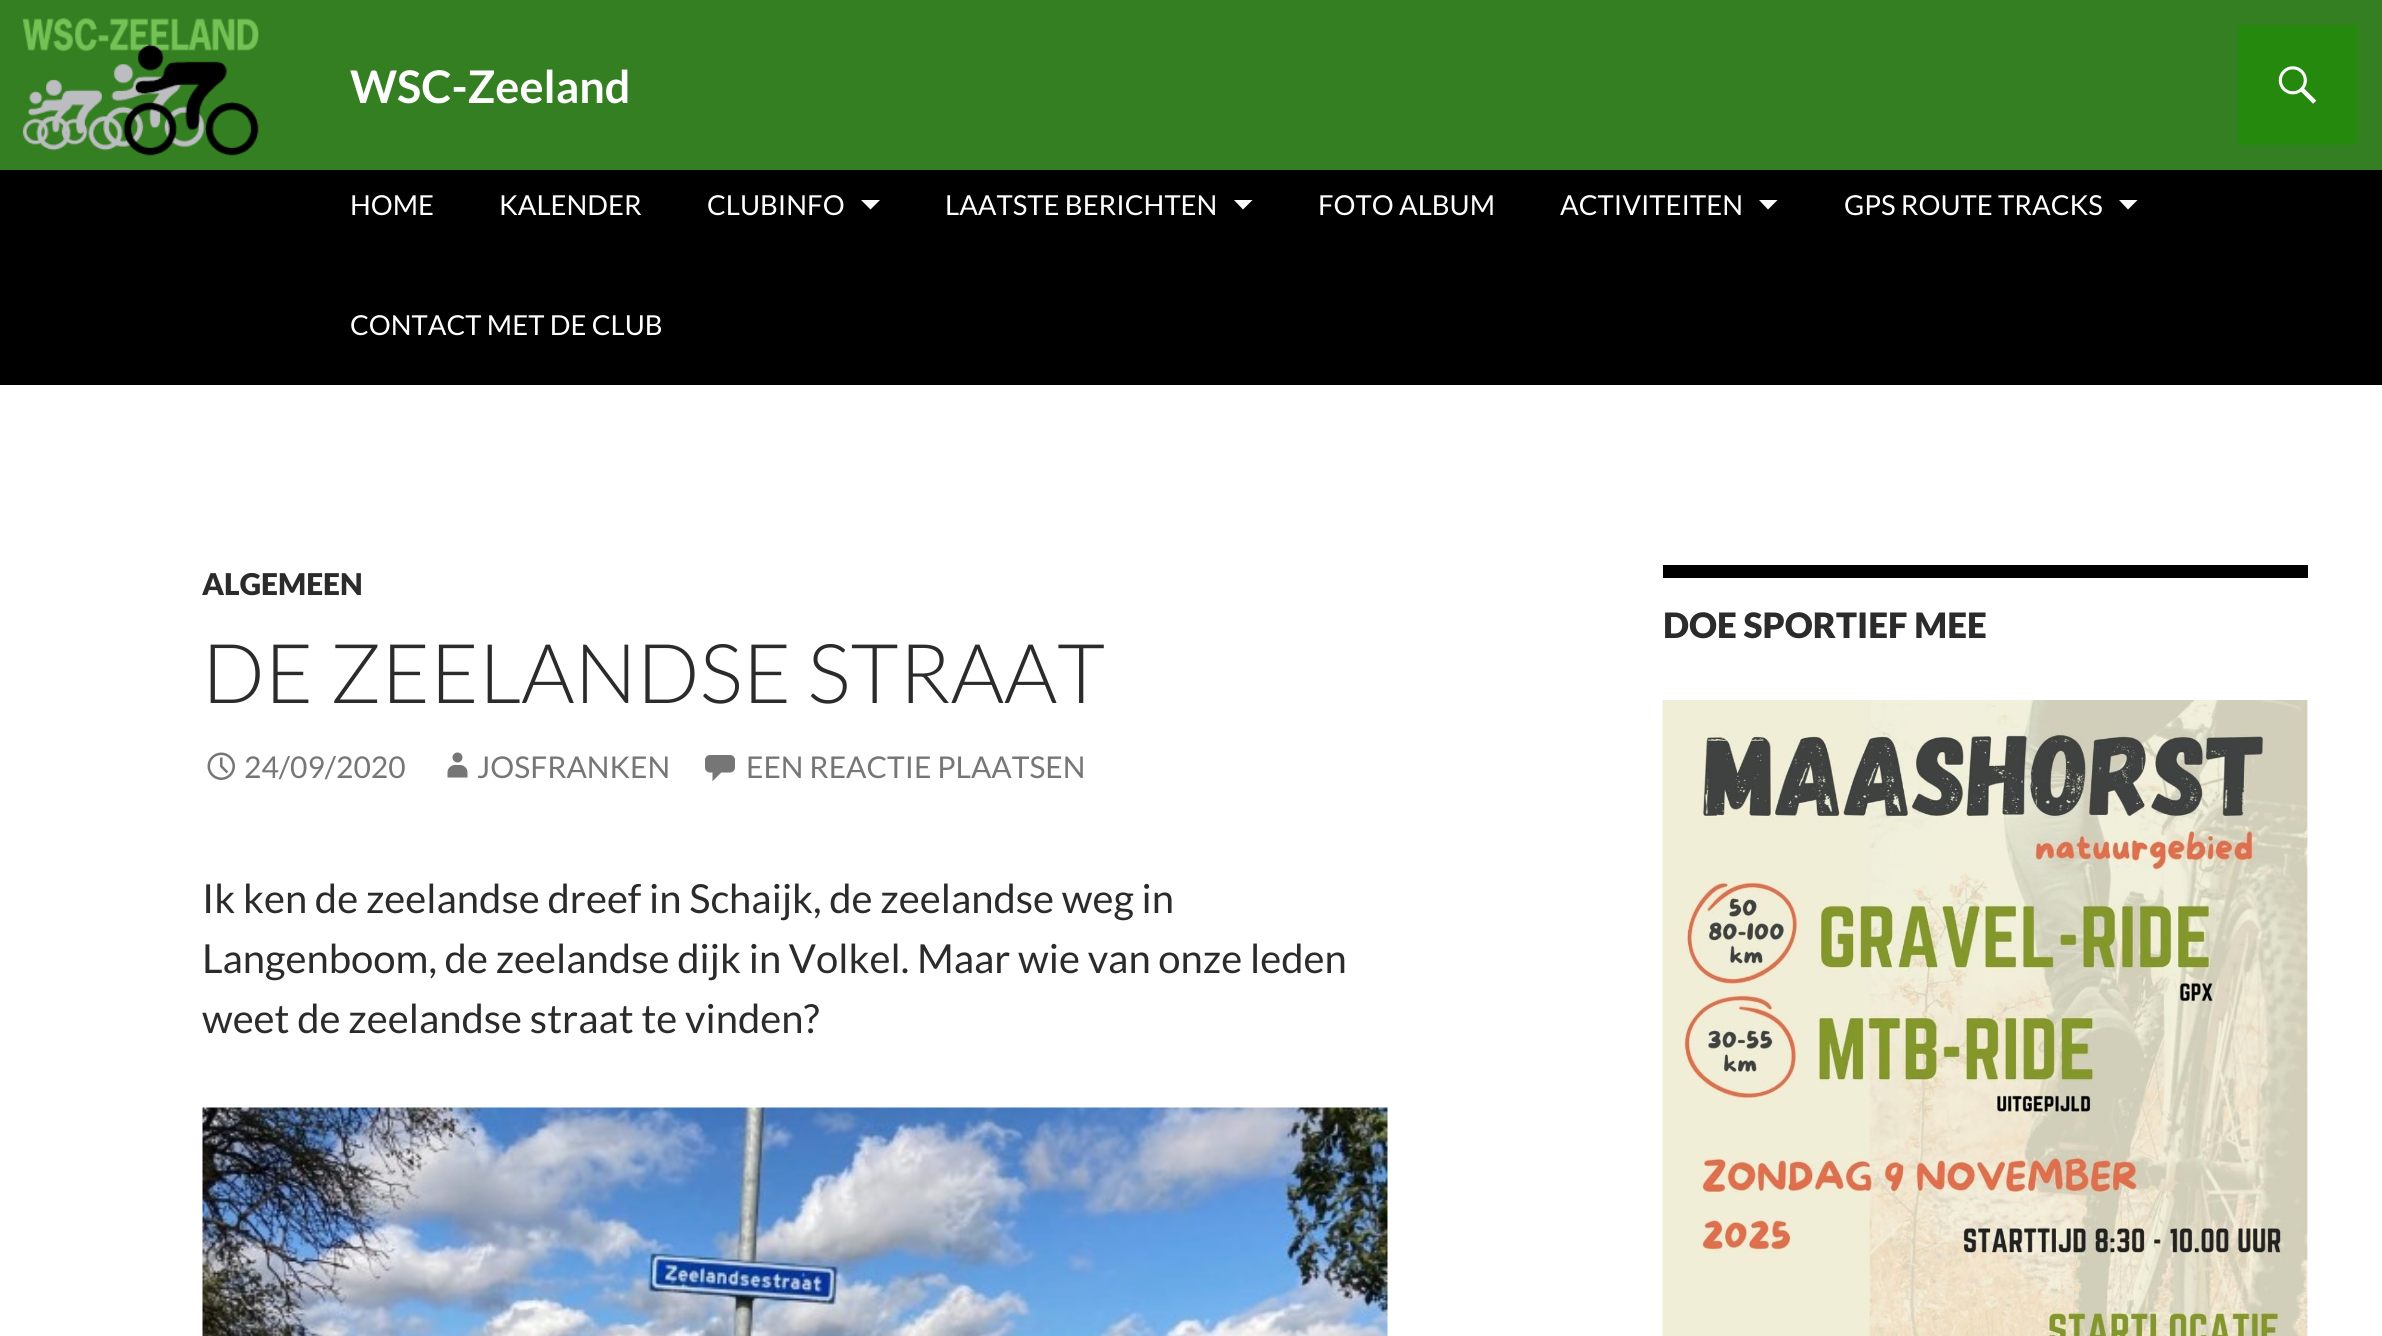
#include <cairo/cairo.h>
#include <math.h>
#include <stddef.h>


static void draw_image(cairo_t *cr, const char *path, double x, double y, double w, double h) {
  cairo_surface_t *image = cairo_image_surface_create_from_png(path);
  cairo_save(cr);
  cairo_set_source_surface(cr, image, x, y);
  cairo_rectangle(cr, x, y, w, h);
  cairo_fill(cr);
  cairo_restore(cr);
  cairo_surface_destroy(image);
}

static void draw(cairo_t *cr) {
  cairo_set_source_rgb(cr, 1, 1, 1);
  cairo_paint(cr);
  cairo_set_source_rgb(cr, 0, 0, 0);
  cairo_rectangle(cr, 0, 170, 2382, 215);
  cairo_fill(cr);
  cairo_set_source_rgb(cr, 52 / 255.0, 127 / 255.0, 33 / 255.0);
  cairo_rectangle(cr, 0, 0, 2382, 170);
  cairo_fill(cr);
  draw_image(cr, "images/1.png", 22, 18, 237, 138);
  cairo_set_source_rgb(cr, 36 / 255.0, 137 / 255.0, 13 / 255.0);
  cairo_rectangle(cr, 2238, 25, 120, 120);
  cairo_fill(cr);
  draw_image(cr, "images/2.png", 2278, 66, 39, 38);
  cairo_set_source_rgb(cr, 1, 1, 1);
  cairo_new_path(cr);
  cairo_move_to(cr, 861, 200);
  cairo_line_to(cr, 870.5, 209.5);
  cairo_line_to(cr, 880, 200);
  cairo_close_path(cr);
  cairo_fill(cr);
  cairo_new_path(cr);
  cairo_move_to(cr, 1234, 200);
  cairo_line_to(cr, 1243, 209.5);
  cairo_line_to(cr, 1252.5, 200);
  cairo_close_path(cr);
  cairo_fill(cr);
  cairo_new_path(cr);
  cairo_move_to(cr, 1759, 200);
  cairo_line_to(cr, 1768, 209.5);
  cairo_line_to(cr, 1777.5, 200);
  cairo_close_path(cr);
  cairo_fill(cr);
  cairo_new_path(cr);
  cairo_move_to(cr, 2119, 200);
  cairo_line_to(cr, 2128, 209.5);
  cairo_line_to(cr, 2137.5, 200);
  cairo_close_path(cr);
  cairo_fill(cr);
  draw_image(cr, "images/3.png", 207, 752, 28, 28);
  draw_image(cr, "images/4.png", 447, 752, 21, 26);
  draw_image(cr, "images/5.png", 705, 755, 30, 27);
  draw_image(cr, "images/6.png", 202, 1107, 1186, 229);
  cairo_set_source_rgb(cr, 0, 0, 0);
  cairo_rectangle(cr, 1663, 565, 645, 13);
  cairo_fill(cr);
  draw_image(cr, "images/7.png", 1662, 700, 646, 636);
  cairo_select_font_face(cr, "Lato", CAIRO_FONT_SLANT_NORMAL, CAIRO_FONT_WEIGHT_BOLD);
  cairo_set_font_size(cr, 45);
  cairo_set_source_rgb(cr, 1, 1, 1);
  cairo_move_to(cr, 350, 103);
  cairo_show_text(cr, "WSC-Zeeland");
  cairo_select_font_face(cr, "Lato", CAIRO_FONT_SLANT_NORMAL, CAIRO_FONT_WEIGHT_NORMAL);
  cairo_set_font_size(cr, 27.5);
  cairo_move_to(cr, 350, 215);
  cairo_show_text(cr, "HOME");
  cairo_move_to(cr, 499, 215);
  cairo_show_text(cr, "KALENDER");
  cairo_move_to(cr, 707, 215);
  cairo_show_text(cr, "CLUBINFO");
  cairo_move_to(cr, 945, 215);
  cairo_show_text(cr, "LAATSTE BERICHTEN");
  cairo_move_to(cr, 1318, 215);
  cairo_show_text(cr, "FOTO ALBUM");
  cairo_move_to(cr, 1560, 215);
  cairo_show_text(cr, "ACTIVITEITEN");
  cairo_move_to(cr, 1844, 215);
  cairo_show_text(cr, "GPS ROUTE TRACKS");
  cairo_move_to(cr, 350, 335);
  cairo_show_text(cr, "CONTACT MET DE CLUB");
  cairo_select_font_face(cr, "Lato Black", CAIRO_FONT_SLANT_NORMAL, CAIRO_FONT_WEIGHT_NORMAL);
  cairo_set_font_size(cr, 30);
  cairo_set_source_rgb(cr, 43 / 255.0, 43 / 255.0, 43 / 255.0);
  cairo_move_to(cr, 202, 595);
  cairo_show_text(cr, "ALGEMEEN");
  cairo_select_font_face(cr, "Lato Light", CAIRO_FONT_SLANT_NORMAL, CAIRO_FONT_WEIGHT_NORMAL);
  cairo_set_font_size(cr, 82.5);
  cairo_move_to(cr, 202, 703);
  cairo_show_text(cr, "DE ZEELANDSE STRAAT");
  cairo_select_font_face(cr, "Lato", CAIRO_FONT_SLANT_NORMAL, CAIRO_FONT_WEIGHT_NORMAL);
  cairo_set_font_size(cr, 30);
  cairo_set_source_rgb(cr, 118 / 255.0, 118 / 255.0, 118 / 255.0);
  cairo_move_to(cr, 244, 778);
  cairo_show_text(cr, "24/09/2020");
  cairo_move_to(cr, 477, 778);
  cairo_show_text(cr, "JOSFRANKEN");
  cairo_move_to(cr, 746, 778);
  cairo_show_text(cr, "EEN REACTIE PLAATSEN");
  cairo_set_font_size(cr, 40);
  cairo_set_source_rgb(cr, 43 / 255.0, 43 / 255.0, 43 / 255.0);
  cairo_move_to(cr, 202, 913);
  cairo_show_text(cr, "Ik ken de zeelandse dreef in Schaijk, de zeelandse weg in");
  cairo_move_to(cr, 202, 973);
  cairo_show_text(cr, "Langenboom, de zeelandse dijk in Volkel. Maar wie van onze leden");
  cairo_move_to(cr, 202, 1033);
  cairo_show_text(cr, "weet de zeelandse straat te vinden?");
  cairo_select_font_face(cr, "Lato Black", CAIRO_FONT_SLANT_NORMAL, CAIRO_FONT_WEIGHT_NORMAL);
  cairo_set_font_size(cr, 35);
  cairo_move_to(cr, 1663, 638);
  cairo_show_text(cr, "DOE SPORTIEF MEE");
}

int main(void) {
  cairo_surface_t *surface = cairo_image_surface_create(CAIRO_FORMAT_RGB24, 2382, 1336);
  cairo_t *cr = cairo_create(surface);
  cairo_font_options_t *options = cairo_font_options_create();
  cairo_font_options_set_hint_metrics(options, CAIRO_HINT_METRICS_OFF);
  cairo_font_options_set_hint_style(options, CAIRO_HINT_STYLE_NONE);
  cairo_set_font_options(cr, options);
  cairo_set_miter_limit(cr, 4);
  draw(cr);
  cairo_surface_write_to_png(surface, "out.png");
  cairo_font_options_destroy(options);
  cairo_destroy(cr);
  cairo_surface_destroy(surface);
  return 0;
}
